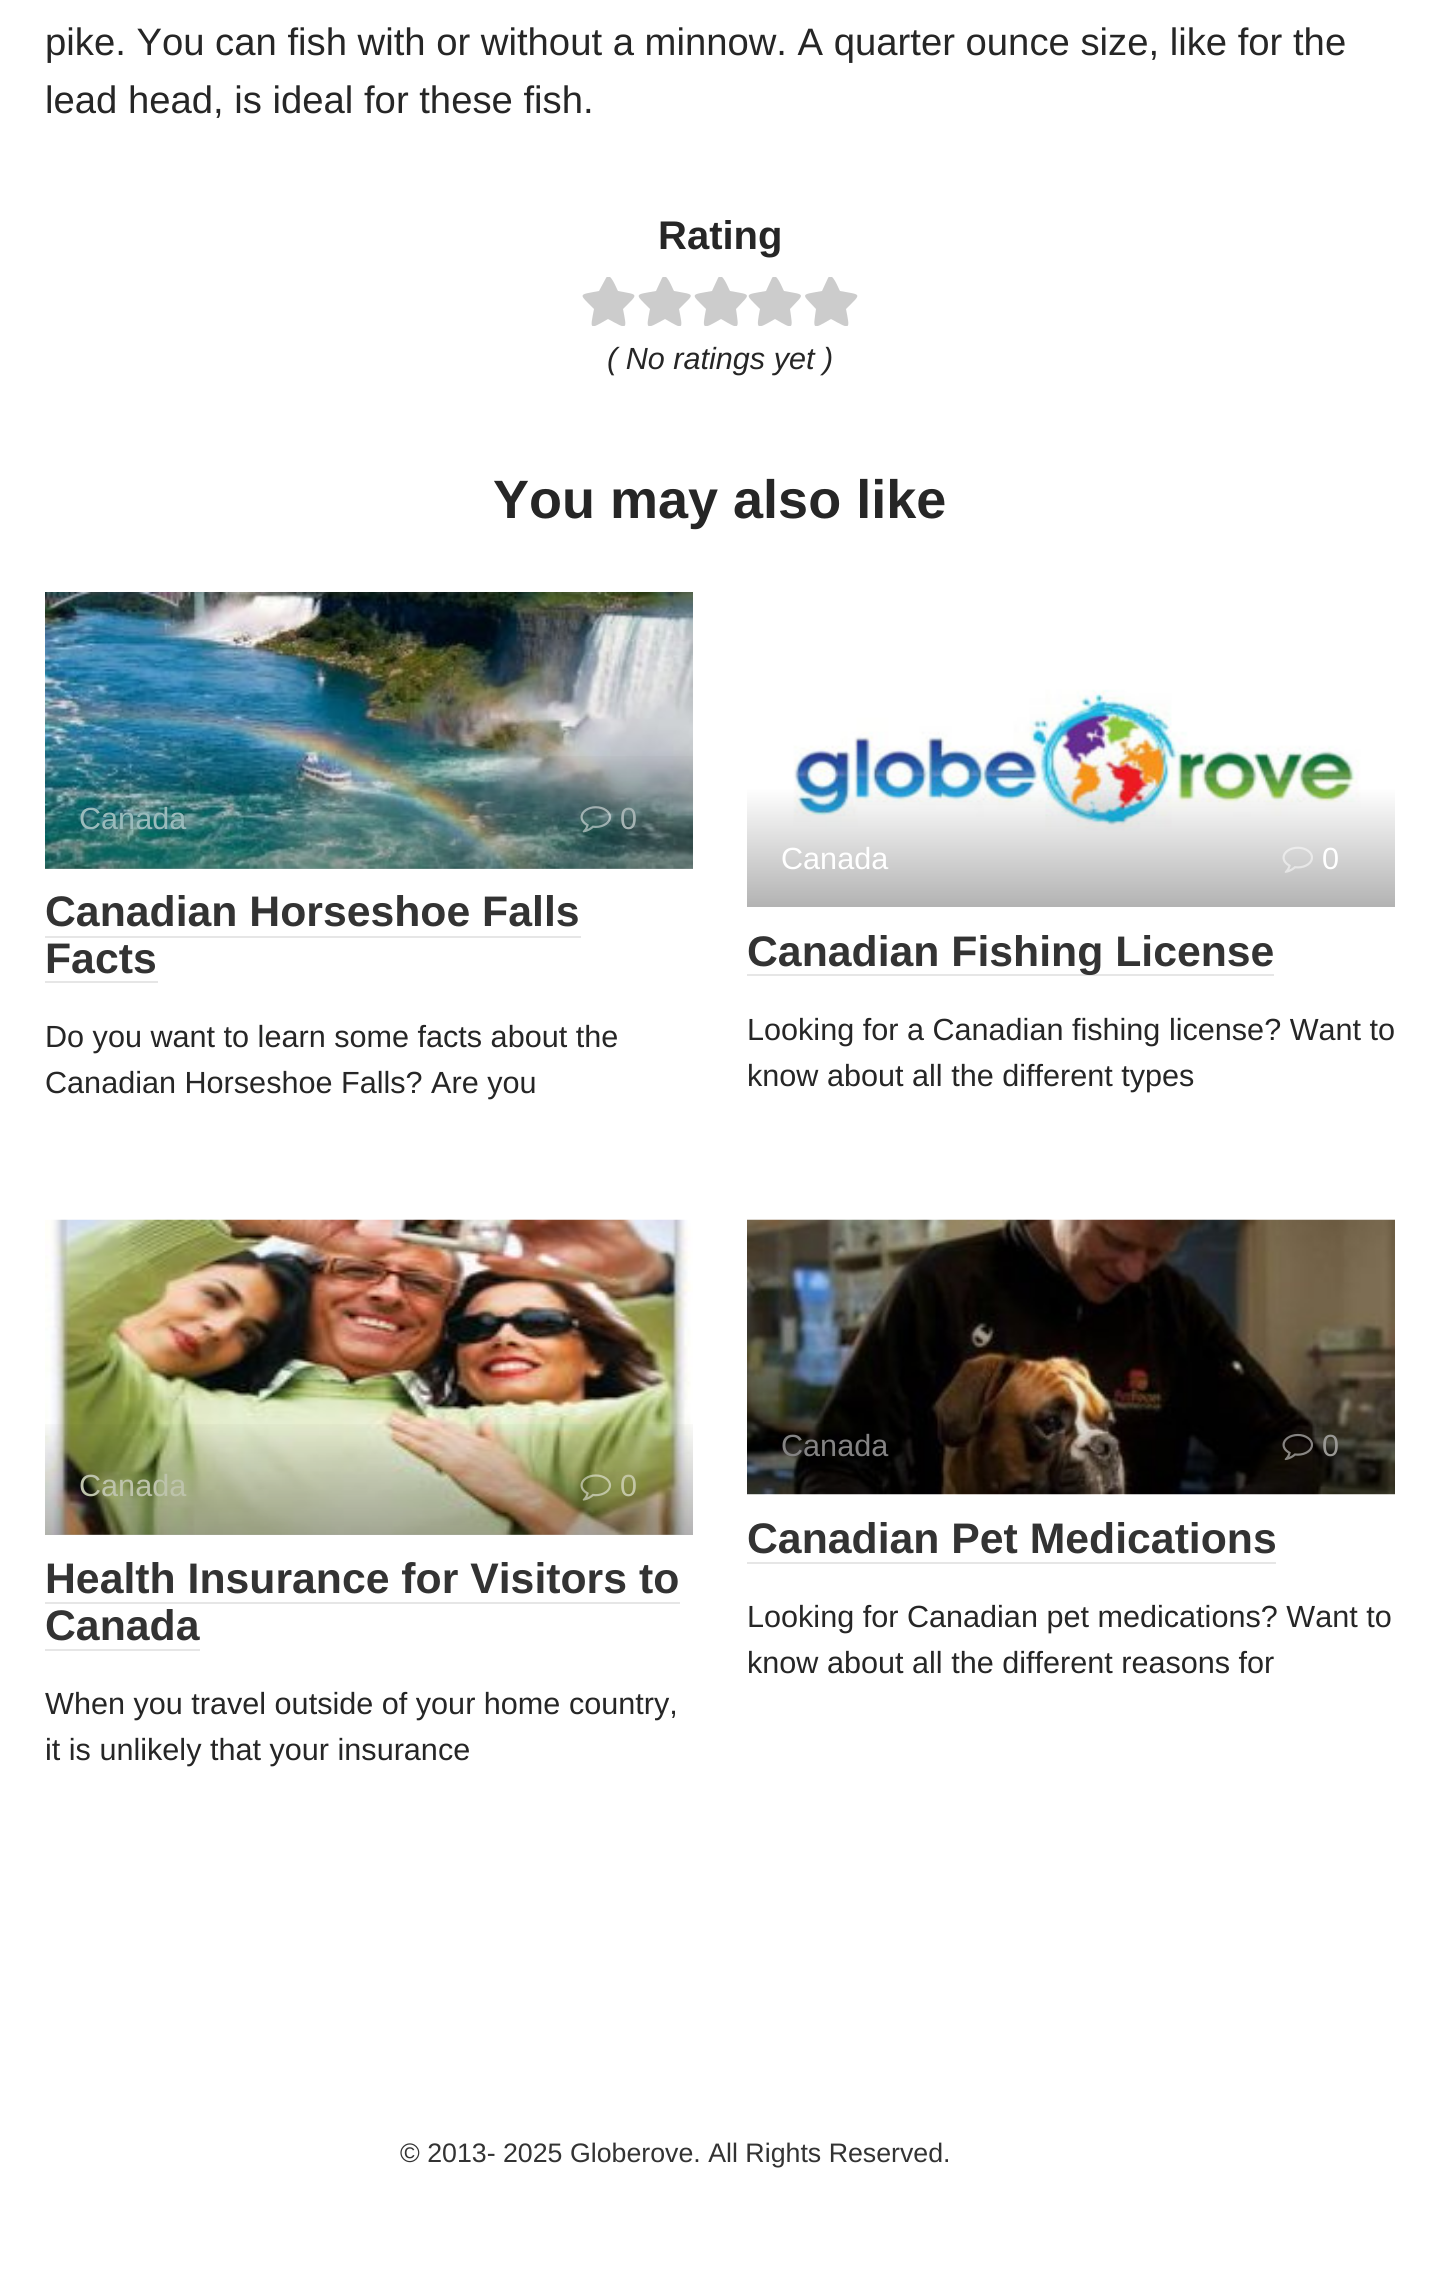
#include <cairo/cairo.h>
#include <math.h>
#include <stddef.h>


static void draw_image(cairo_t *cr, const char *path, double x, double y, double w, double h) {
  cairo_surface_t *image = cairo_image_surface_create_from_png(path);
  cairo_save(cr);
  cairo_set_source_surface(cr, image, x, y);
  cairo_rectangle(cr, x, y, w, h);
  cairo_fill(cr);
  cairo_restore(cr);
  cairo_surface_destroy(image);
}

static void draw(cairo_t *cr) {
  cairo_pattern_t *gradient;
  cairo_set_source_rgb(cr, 1, 1, 1);
  cairo_paint(cr);
  cairo_save(cr);
  cairo_rectangle(cr, 581, 277, 56, 49);
  cairo_clip(cr);
  cairo_set_source_rgb(cr, 204 / 255.0, 204 / 255.0, 204 / 255.0);
  cairo_new_path(cr);
  cairo_move_to(cr, 606, 278);
  cairo_line_to(cr, 599, 291);
  cairo_curve_to(cr, 578, 295, 578, 293, 594, 309);
  cairo_curve_to(cr, 590, 330, 589, 330, 608, 319);
  cairo_curve_to(cr, 628, 330, 627, 330, 623, 309);
  cairo_curve_to(cr, 639, 293, 639, 295, 618, 291);
  cairo_curve_to(cr, 617, 290, 610, 270, 606, 278);
  cairo_close_path(cr);
  cairo_fill(cr);
  cairo_restore(cr);
  cairo_save(cr);
  cairo_rectangle(cr, 637, 277, 56, 49);
  cairo_clip(cr);
  cairo_set_source_rgb(cr, 204 / 255.0, 204 / 255.0, 204 / 255.0);
  cairo_new_path(cr);
  cairo_move_to(cr, 662, 278);
  cairo_line_to(cr, 656, 291);
  cairo_curve_to(cr, 634, 295, 634, 293, 650, 309);
  cairo_curve_to(cr, 646, 330, 645, 330, 665, 319);
  cairo_curve_to(cr, 684, 330, 683, 330, 679, 309);
  cairo_curve_to(cr, 695, 293, 696, 295, 674, 291);
  cairo_curve_to(cr, 673, 290, 666, 270, 662, 278);
  cairo_close_path(cr);
  cairo_fill(cr);
  cairo_restore(cr);
  cairo_save(cr);
  cairo_rectangle(cr, 693, 277, 54, 49);
  cairo_clip(cr);
  cairo_set_source_rgb(cr, 204 / 255.0, 204 / 255.0, 204 / 255.0);
  cairo_new_path(cr);
  cairo_move_to(cr, 718, 278);
  cairo_line_to(cr, 712, 291);
  cairo_curve_to(cr, 690, 295, 690, 293, 706, 309);
  cairo_curve_to(cr, 702, 330, 702, 330, 721, 319);
  cairo_curve_to(cr, 740, 330, 739, 330, 736, 309);
  cairo_curve_to(cr, 751, 293, 752, 295, 730, 291);
  cairo_curve_to(cr, 729, 290, 722, 270, 718, 278);
  cairo_close_path(cr);
  cairo_fill(cr);
  cairo_restore(cr);
  cairo_save(cr);
  cairo_rectangle(cr, 747, 277, 56, 49);
  cairo_clip(cr);
  cairo_set_source_rgb(cr, 204 / 255.0, 204 / 255.0, 204 / 255.0);
  cairo_new_path(cr);
  cairo_move_to(cr, 772, 278);
  cairo_line_to(cr, 766, 291);
  cairo_curve_to(cr, 744, 295, 744, 293, 760, 309);
  cairo_curve_to(cr, 756, 330, 756, 330, 775, 319);
  cairo_curve_to(cr, 794, 330, 793, 330, 790, 309);
  cairo_curve_to(cr, 805, 293, 806, 295, 784, 291);
  cairo_curve_to(cr, 783, 290, 776, 270, 772, 278);
  cairo_close_path(cr);
  cairo_fill(cr);
  cairo_restore(cr);
  cairo_save(cr);
  cairo_rectangle(cr, 803, 277, 57, 49);
  cairo_clip(cr);
  cairo_set_source_rgb(cr, 204 / 255.0, 204 / 255.0, 204 / 255.0);
  cairo_new_path(cr);
  cairo_move_to(cr, 828, 278);
  cairo_line_to(cr, 822, 291);
  cairo_curve_to(cr, 800, 295, 801, 293, 816, 309);
  cairo_curve_to(cr, 813, 330, 812, 330, 831, 319);
  cairo_curve_to(cr, 851, 330, 850, 330, 846, 309);
  cairo_curve_to(cr, 862, 293, 862, 295, 840, 291);
  cairo_curve_to(cr, 839, 290, 832, 270, 828, 278);
  cairo_close_path(cr);
  cairo_fill(cr);
  cairo_restore(cr);
  draw_image(cr, "images/1.png", 45, 592, 648, 277);
  gradient = cairo_pattern_create_linear(369, 747, 369, 869);
  cairo_pattern_add_color_stop_rgba(gradient, 0, 0, 0, 0, 0);
  cairo_pattern_add_color_stop_rgba(gradient, 1, 0, 0, 0, 0.3);
  cairo_set_source(cr, gradient);
  cairo_pattern_destroy(gradient);
  cairo_rectangle(cr, 45, 756, 648, 113);
  cairo_fill(cr);
  draw_image(cr, "images/2.png", 580, 806, 32, 27);
  cairo_set_source_rgb(cr, 230 / 255.0, 230 / 255.0, 230 / 255.0);
  cairo_rectangle(cr, 45, 936, 536, 2);
  cairo_fill(cr);
  cairo_rectangle(cr, 45, 981, 113, 2);
  cairo_fill(cr);
  draw_image(cr, "images/3.png", 747, 592, 648, 315);
  draw_image(cr, "images/4.png", 1282, 846, 31, 27);
  cairo_rectangle(cr, 747, 974, 527, 2);
  cairo_fill(cr);
  draw_image(cr, "images/5.png", 45, 1219, 648, 316);
  gradient = cairo_pattern_create_linear(369, 1415, 369, 1535);
  cairo_pattern_add_color_stop_rgba(gradient, 0, 0, 0, 0, 0);
  cairo_pattern_add_color_stop_rgba(gradient, 1, 0, 0, 0, 0.3);
  cairo_set_source(cr, gradient);
  cairo_pattern_destroy(gradient);
  cairo_rectangle(cr, 45, 1424, 648, 111);
  cairo_fill(cr);
  draw_image(cr, "images/6.png", 580, 1474, 32, 27);
  cairo_set_source_rgb(cr, 230 / 255.0, 230 / 255.0, 230 / 255.0);
  cairo_rectangle(cr, 45, 1602, 635, 2);
  cairo_fill(cr);
  cairo_rectangle(cr, 45, 1649, 155, 2);
  cairo_fill(cr);
  draw_image(cr, "images/7.png", 747, 1219, 648, 276);
  draw_image(cr, "images/8.png", 1282, 1433, 32, 28);
  cairo_rectangle(cr, 747, 1562, 529, 2);
  cairo_fill(cr);
  cairo_select_font_face(cr, "Liberation Sans", CAIRO_FONT_SLANT_NORMAL, CAIRO_FONT_WEIGHT_NORMAL);
  cairo_set_font_size(cr, 38.25);
  cairo_set_source_rgb(cr, 38 / 255.0, 38 / 255.0, 38 / 255.0);
  cairo_move_to(cr, 45, 55);
  cairo_show_text(cr, "pike. You can fish with or without a minnow. A quarter ounce size, like for the");
  cairo_move_to(cr, 45, 113);
  cairo_show_text(cr, "lead head, is ideal for these fish.");
  cairo_select_font_face(cr, "Liberation Sans", CAIRO_FONT_SLANT_NORMAL, CAIRO_FONT_WEIGHT_BOLD);
  cairo_set_font_size(cr, 40);
  cairo_move_to(cr, 658, 249);
  cairo_show_text(cr, "Rating");
  cairo_select_font_face(cr, "Liberation Sans", CAIRO_FONT_SLANT_ITALIC, CAIRO_FONT_WEIGHT_NORMAL);
  cairo_set_font_size(cr, 30.6);
  cairo_move_to(cr, 607, 369);
  cairo_show_text(cr, "( No ratings yet )");
  cairo_select_font_face(cr, "Liberation Sans", CAIRO_FONT_SLANT_NORMAL, CAIRO_FONT_WEIGHT_BOLD);
  cairo_set_font_size(cr, 54);
  cairo_move_to(cr, 493, 518);
  cairo_show_text(cr, "You may also like");
  cairo_select_font_face(cr, "Liberation Sans", CAIRO_FONT_SLANT_NORMAL, CAIRO_FONT_WEIGHT_NORMAL);
  cairo_set_font_size(cr, 30.6);
  cairo_set_source_rgb(cr, 154 / 255.0, 187 / 255.0, 188 / 255.0);
  cairo_move_to(cr, 79, 829);
  cairo_show_text(cr, "Canada");
  cairo_set_source_rgb(cr, 165 / 255.0, 179 / 255.0, 179 / 255.0);
  cairo_move_to(cr, 620, 829);
  cairo_show_text(cr, "0");
  cairo_select_font_face(cr, "Liberation Sans", CAIRO_FONT_SLANT_NORMAL, CAIRO_FONT_WEIGHT_BOLD);
  cairo_set_font_size(cr, 42.75);
  cairo_set_source_rgb(cr, 51 / 255.0, 51 / 255.0, 51 / 255.0);
  cairo_move_to(cr, 45, 926);
  cairo_show_text(cr, "Canadian Horseshoe Falls");
  cairo_move_to(cr, 45, 973);
  cairo_show_text(cr, "Facts");
  cairo_select_font_face(cr, "Liberation Sans", CAIRO_FONT_SLANT_NORMAL, CAIRO_FONT_WEIGHT_NORMAL);
  cairo_set_font_size(cr, 30.6);
  cairo_set_source_rgb(cr, 38 / 255.0, 38 / 255.0, 38 / 255.0);
  cairo_move_to(cr, 45, 1047);
  cairo_show_text(cr, "Do you want to learn some facts about the");
  cairo_move_to(cr, 45, 1093);
  cairo_show_text(cr, "Canadian Horseshoe Falls? Are you");
  cairo_set_source_rgb(cr, 1, 1, 1);
  cairo_move_to(cr, 781, 869);
  cairo_show_text(cr, "Canada");
  cairo_move_to(cr, 1322, 869);
  cairo_show_text(cr, "0");
  cairo_select_font_face(cr, "Liberation Sans", CAIRO_FONT_SLANT_NORMAL, CAIRO_FONT_WEIGHT_BOLD);
  cairo_set_font_size(cr, 42.75);
  cairo_set_source_rgb(cr, 51 / 255.0, 51 / 255.0, 51 / 255.0);
  cairo_move_to(cr, 747, 966);
  cairo_show_text(cr, "Canadian Fishing License");
  cairo_select_font_face(cr, "Liberation Sans", CAIRO_FONT_SLANT_NORMAL, CAIRO_FONT_WEIGHT_NORMAL);
  cairo_set_font_size(cr, 30.6);
  cairo_set_source_rgb(cr, 38 / 255.0, 38 / 255.0, 38 / 255.0);
  cairo_move_to(cr, 747, 1040);
  cairo_show_text(cr, "Looking for a Canadian fishing license? Want to");
  cairo_move_to(cr, 747, 1086);
  cairo_show_text(cr, "know about all the different types");
  cairo_set_source_rgb(cr, 189 / 255.0, 195 / 255.0, 171 / 255.0);
  cairo_move_to(cr, 79, 1496);
  cairo_show_text(cr, "Canada");
  cairo_set_source_rgb(cr, 195 / 255.0, 198 / 255.0, 164 / 255.0);
  cairo_move_to(cr, 620, 1496);
  cairo_show_text(cr, "0");
  cairo_select_font_face(cr, "Liberation Sans", CAIRO_FONT_SLANT_NORMAL, CAIRO_FONT_WEIGHT_BOLD);
  cairo_set_font_size(cr, 42.75);
  cairo_set_source_rgb(cr, 51 / 255.0, 51 / 255.0, 51 / 255.0);
  cairo_move_to(cr, 45, 1593);
  cairo_show_text(cr, "Health Insurance for Visitors to");
  cairo_move_to(cr, 45, 1640);
  cairo_show_text(cr, "Canada");
  cairo_select_font_face(cr, "Liberation Sans", CAIRO_FONT_SLANT_NORMAL, CAIRO_FONT_WEIGHT_NORMAL);
  cairo_set_font_size(cr, 30.6);
  cairo_set_source_rgb(cr, 38 / 255.0, 38 / 255.0, 38 / 255.0);
  cairo_move_to(cr, 45, 1714);
  cairo_show_text(cr, "When you travel outside of your home country,");
  cairo_move_to(cr, 45, 1760);
  cairo_show_text(cr, "it is unlikely that your insurance");
  cairo_set_source_rgb(cr, 132 / 255.0, 131 / 255.0, 131 / 255.0);
  cairo_move_to(cr, 781, 1456);
  cairo_show_text(cr, "Canada");
  cairo_set_source_rgb(cr, 153 / 255.0, 152 / 255.0, 148 / 255.0);
  cairo_move_to(cr, 1322, 1456);
  cairo_show_text(cr, "0");
  cairo_select_font_face(cr, "Liberation Sans", CAIRO_FONT_SLANT_NORMAL, CAIRO_FONT_WEIGHT_BOLD);
  cairo_set_font_size(cr, 42.75);
  cairo_set_source_rgb(cr, 51 / 255.0, 51 / 255.0, 51 / 255.0);
  cairo_move_to(cr, 747, 1553);
  cairo_show_text(cr, "Canadian Pet Medications");
  cairo_select_font_face(cr, "Liberation Sans", CAIRO_FONT_SLANT_NORMAL, CAIRO_FONT_WEIGHT_NORMAL);
  cairo_set_font_size(cr, 30.6);
  cairo_set_source_rgb(cr, 38 / 255.0, 38 / 255.0, 38 / 255.0);
  cairo_move_to(cr, 747, 1627);
  cairo_show_text(cr, "Looking for Canadian pet medications? Want to");
  cairo_move_to(cr, 747, 1673);
  cairo_show_text(cr, "know about all the different reasons for");
  cairo_set_font_size(cr, 26.75);
  cairo_set_source_rgb(cr, 51 / 255.0, 51 / 255.0, 51 / 255.0);
  cairo_move_to(cr, 400, 2162);
  cairo_show_text(cr, "© 2013- 2025 Globerove. All Rights Reserved.");
}

int main(void) {
  cairo_surface_t *surface = cairo_image_surface_create(CAIRO_FORMAT_RGB24, 1439, 2288);
  cairo_t *cr = cairo_create(surface);
  cairo_font_options_t *options = cairo_font_options_create();
  cairo_font_options_set_hint_metrics(options, CAIRO_HINT_METRICS_OFF);
  cairo_font_options_set_hint_style(options, CAIRO_HINT_STYLE_NONE);
  cairo_set_font_options(cr, options);
  cairo_set_miter_limit(cr, 4);
  draw(cr);
  cairo_surface_write_to_png(surface, "out.png");
  cairo_font_options_destroy(options);
  cairo_destroy(cr);
  cairo_surface_destroy(surface);
  return 0;
}
